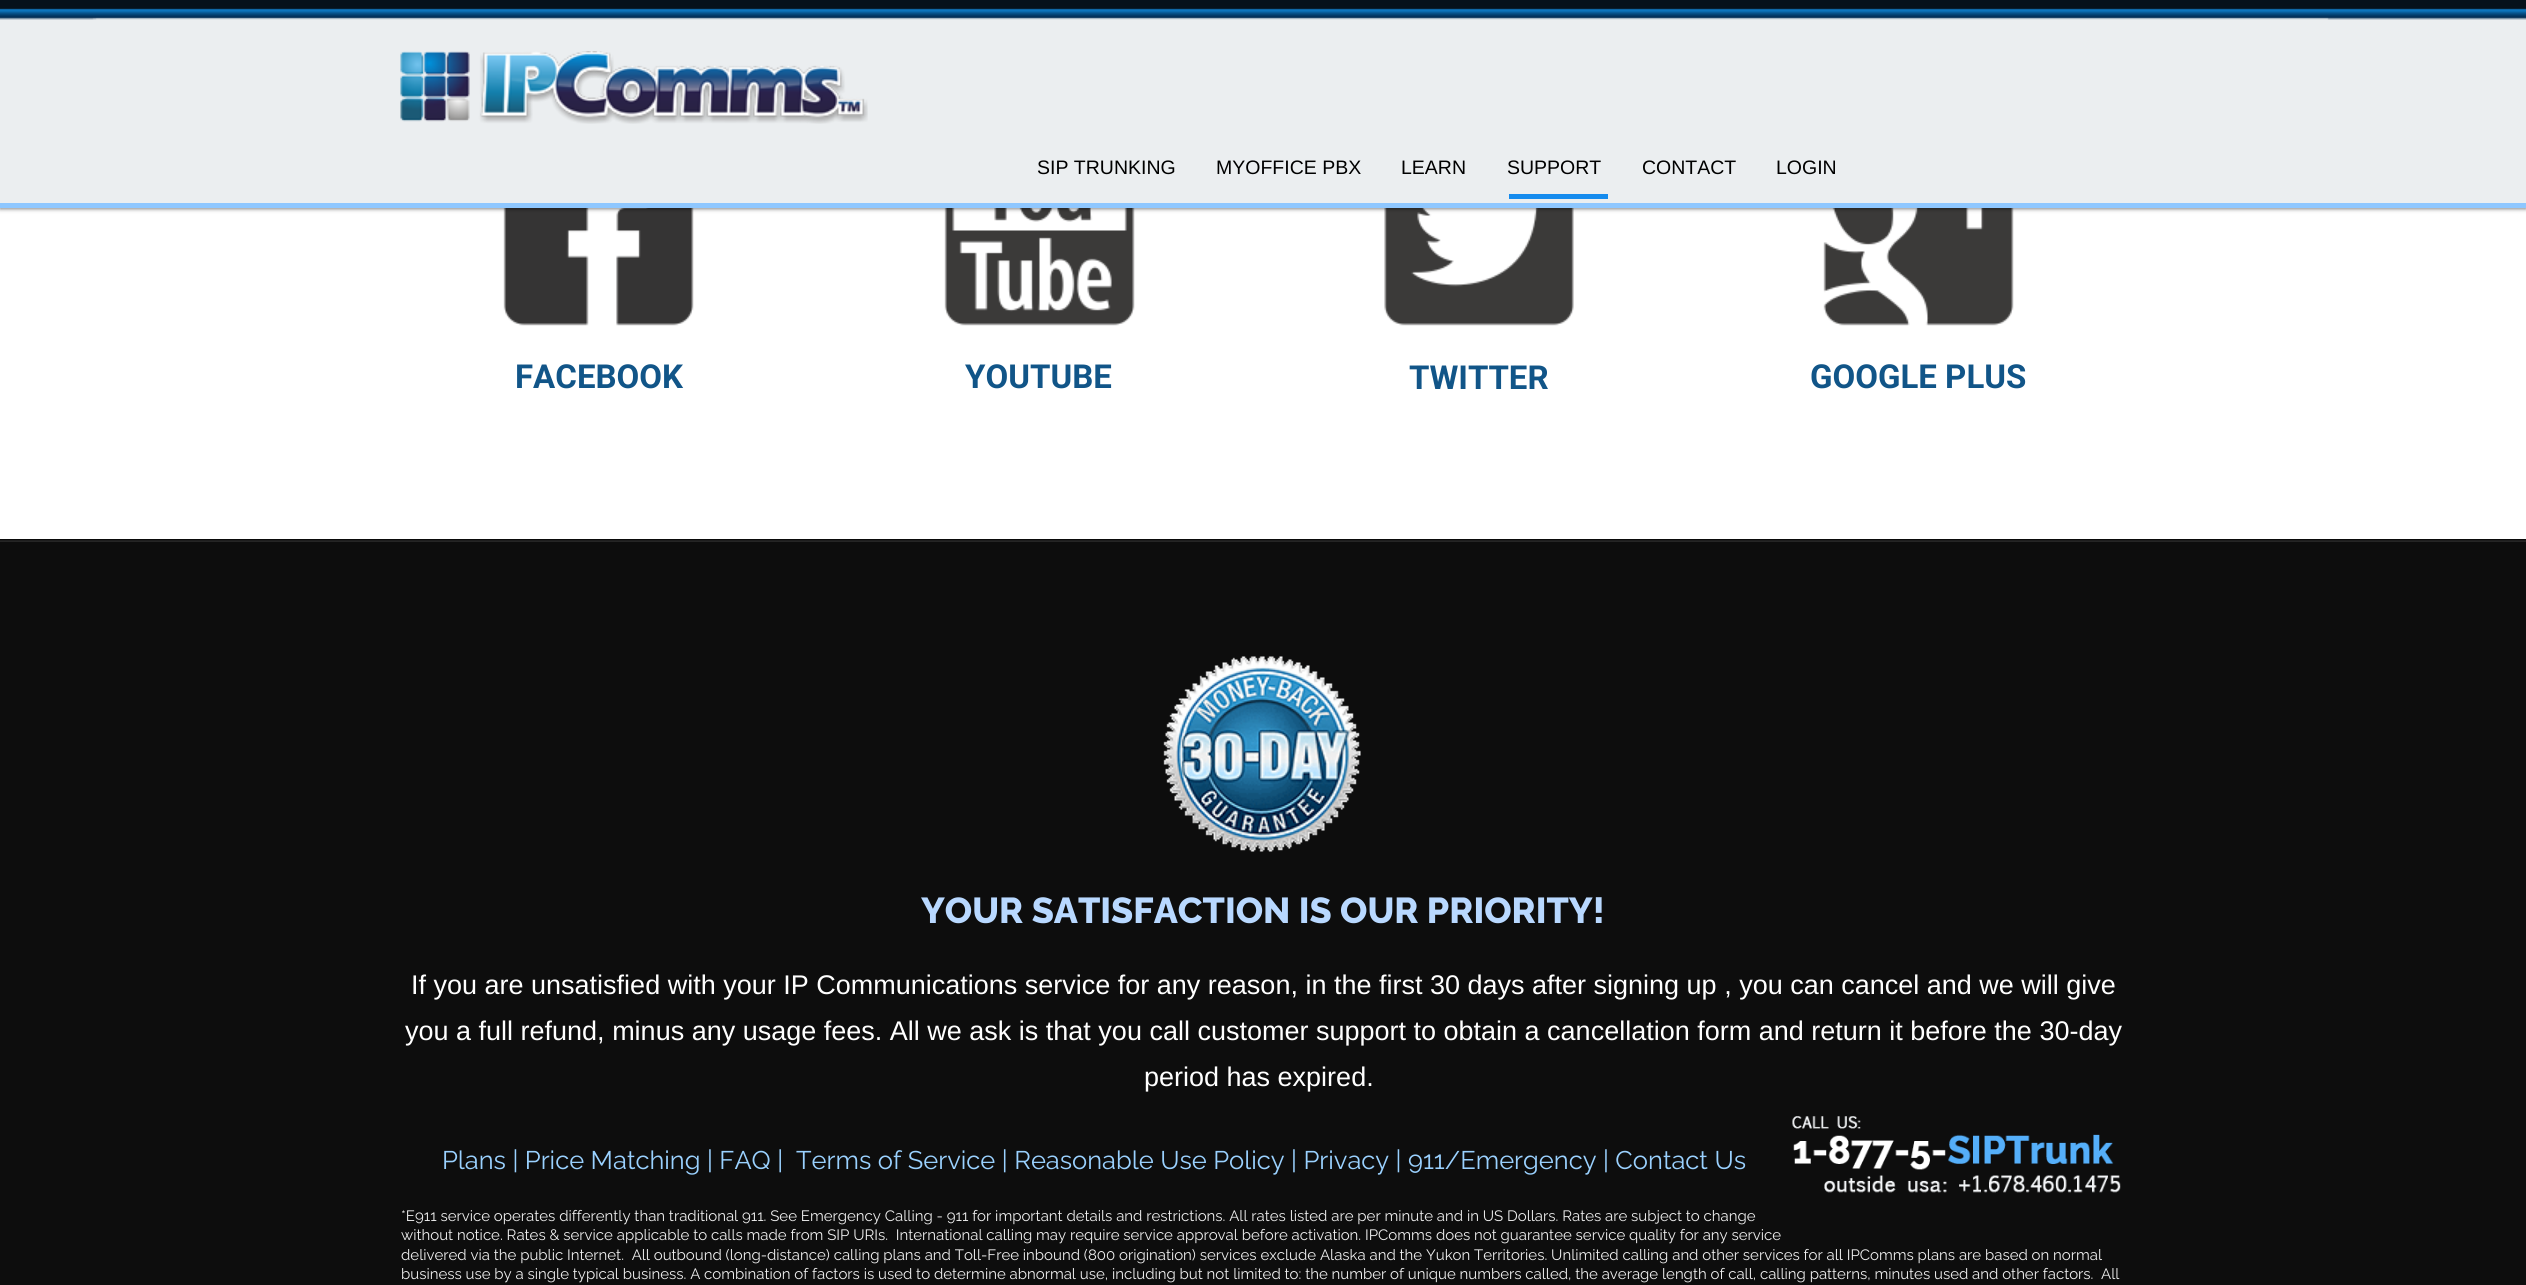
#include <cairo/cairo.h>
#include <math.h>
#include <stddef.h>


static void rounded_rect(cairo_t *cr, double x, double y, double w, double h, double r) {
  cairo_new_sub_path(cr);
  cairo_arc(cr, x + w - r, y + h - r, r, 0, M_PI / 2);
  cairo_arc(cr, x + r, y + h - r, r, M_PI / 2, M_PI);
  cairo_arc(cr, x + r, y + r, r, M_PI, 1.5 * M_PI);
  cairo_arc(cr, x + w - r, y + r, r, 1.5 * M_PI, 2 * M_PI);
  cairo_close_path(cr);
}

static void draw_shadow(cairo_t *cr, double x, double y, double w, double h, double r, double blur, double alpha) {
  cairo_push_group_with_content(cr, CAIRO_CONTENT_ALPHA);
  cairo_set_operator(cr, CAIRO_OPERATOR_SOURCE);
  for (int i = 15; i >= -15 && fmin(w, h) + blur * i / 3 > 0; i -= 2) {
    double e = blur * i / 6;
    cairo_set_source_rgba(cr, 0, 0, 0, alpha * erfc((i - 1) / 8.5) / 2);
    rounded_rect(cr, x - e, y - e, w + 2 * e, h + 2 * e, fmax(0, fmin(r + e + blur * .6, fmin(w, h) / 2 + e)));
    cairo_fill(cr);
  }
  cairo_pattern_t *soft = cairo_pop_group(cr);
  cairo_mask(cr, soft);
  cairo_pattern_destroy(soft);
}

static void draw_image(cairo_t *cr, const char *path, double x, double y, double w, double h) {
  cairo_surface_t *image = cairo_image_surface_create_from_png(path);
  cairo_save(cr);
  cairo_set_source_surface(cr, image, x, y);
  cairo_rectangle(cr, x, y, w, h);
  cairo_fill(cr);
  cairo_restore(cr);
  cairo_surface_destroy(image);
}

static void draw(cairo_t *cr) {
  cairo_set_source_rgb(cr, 1, 1, 1);
  cairo_paint(cr);
  draw_image(cr, "images/3.png", 503, 208, 191, 118);
  draw_image(cr, "images/4.png", 944, 208, 191, 118);
  draw_image(cr, "images/5.png", 1384, 208, 190, 118);
  draw_image(cr, "images/6.png", 1823, 208, 191, 118);
  cairo_set_source_rgb(cr, 0, 0, 0);
  draw_shadow(cr, 0, 2, 2526, 207, 0, 2, 0.5);
  cairo_set_source_rgb(cr, 235 / 255.0, 238 / 255.0, 240 / 255.0);
  cairo_rectangle(cr, 0, 20, 2526, 183);
  cairo_fill(cr);
  draw_image(cr, "images/1.png", 0, 0, 2526, 20);
  cairo_set_source_rgb(cr, 142 / 255.0, 199 / 255.0, 1);
  cairo_rectangle(cr, 0, 203, 2526, 5);
  cairo_fill(cr);
  draw_image(cr, "images/2.png", 400, 51, 468, 73);
  cairo_set_source_rgb(cr, 21 / 255.0, 139 / 255.0, 238 / 255.0);
  cairo_rectangle(cr, 1509, 194, 99, 5);
  cairo_fill(cr);
  cairo_set_source_rgb(cr, 13 / 255.0, 13 / 255.0, 13 / 255.0);
  cairo_rectangle(cr, 0, 542, 2526, 743);
  cairo_fill(cr);
  cairo_set_source_rgb(cr, 10 / 255.0, 10 / 255.0, 10 / 255.0);
  cairo_rectangle(cr, 0, 539, 2526, 1);
  cairo_fill(cr);
  cairo_set_source_rgb(cr, 37 / 255.0, 37 / 255.0, 37 / 255.0);
  cairo_rectangle(cr, 0, 541, 2526, 1);
  cairo_fill(cr);
  cairo_set_source_rgb(cr, 30 / 255.0, 30 / 255.0, 30 / 255.0);
  cairo_rectangle(cr, 0, 540, 2526, 1);
  cairo_fill(cr);
  draw_image(cr, "images/7.png", 1163, 656, 198, 196);
  draw_image(cr, "images/8.png", 1792, 1116, 329, 77);
  cairo_select_font_face(cr, "Liberation Sans", CAIRO_FONT_SLANT_NORMAL, CAIRO_FONT_WEIGHT_NORMAL);
  cairo_set_font_size(cr, 19.5);
  cairo_set_source_rgb(cr, 0, 0, 0);
  cairo_move_to(cr, 1037, 174);
  cairo_show_text(cr, "SIP TRUNKING");
  cairo_move_to(cr, 1216, 174);
  cairo_show_text(cr, "MYOFFICE PBX");
  cairo_move_to(cr, 1401, 174);
  cairo_show_text(cr, "LEARN");
  cairo_move_to(cr, 1507, 174);
  cairo_show_text(cr, "SUPPORT");
  cairo_move_to(cr, 1642, 174);
  cairo_show_text(cr, "CONTACT");
  cairo_move_to(cr, 1776, 174);
  cairo_show_text(cr, "LOGIN");
  cairo_select_font_face(cr, "Roboto", CAIRO_FONT_SLANT_NORMAL, CAIRO_FONT_WEIGHT_BOLD);
  cairo_set_font_size(cr, 33);
  cairo_set_source_rgb(cr, 17 / 255.0, 85 / 255.0, 136 / 255.0);
  cairo_move_to(cr, 515, 388);
  cairo_show_text(cr, "FACEBOOK");
  cairo_move_to(cr, 965, 388);
  cairo_show_text(cr, "YOUTUBE");
  cairo_move_to(cr, 1409, 389);
  cairo_show_text(cr, "TWITTER");
  cairo_move_to(cr, 1810, 388);
  cairo_show_text(cr, "GOOGLE PLUS");
  cairo_select_font_face(cr, "Raleway ExtraBold", CAIRO_FONT_SLANT_NORMAL, CAIRO_FONT_WEIGHT_NORMAL);
  cairo_set_font_size(cr, 36);
  cairo_set_source_rgb(cr, 184 / 255.0, 216 / 255.0, 1);
  cairo_move_to(cr, 921, 923);
  cairo_show_text(cr, "YOUR SATISFACTION IS OUR PRIORITY!");
  cairo_select_font_face(cr, "Liberation Sans", CAIRO_FONT_SLANT_NORMAL, CAIRO_FONT_WEIGHT_NORMAL);
  cairo_set_font_size(cr, 27);
  cairo_set_source_rgb(cr, 1, 1, 1);
  cairo_move_to(cr, 411, 994);
  cairo_show_text(cr, "If you are unsatisfied with your IP Communications service for any reason, in the first 30 days after signing up , you can cancel and we will give");
  cairo_move_to(cr, 405, 1040);
  cairo_show_text(cr, "you a full refund, minus any usage fees. All we ask is that you call customer support to obtain a cancellation form and return it before the 30-day");
  cairo_move_to(cr, 1144, 1086);
  cairo_show_text(cr, "period has expired.");
  cairo_select_font_face(cr, "Raleway", CAIRO_FONT_SLANT_NORMAL, CAIRO_FONT_WEIGHT_NORMAL);
  cairo_set_font_size(cr, 25.5);
  cairo_set_source_rgb(cr, 154 / 255.0, 209 / 255.0, 1);
  cairo_move_to(cr, 442, 1169);
  cairo_show_text(cr, "Plans | Price Matching | FAQ |");
  cairo_move_to(cr, 796, 1169);
  cairo_show_text(cr, "Terms of Service | Reasonable Use Policy | Privacy | 911/Emergency | Contact Us");
  cairo_set_font_size(cr, 15);
  cairo_set_source_rgb(cr, 238 / 255.0, 238 / 255.0, 238 / 255.0);
  cairo_move_to(cr, 401, 1221);
  cairo_show_text(cr, "*E911 service operates differently than traditional 911. See Emergency Calling - 911 for important details and restrictions. All rates listed are per minute and in US Dollars. Rates are subject to change");
  cairo_move_to(cr, 401, 1240);
  cairo_show_text(cr, "without notice. Rates & service applicable to calls made from SIP URIs.  International calling may require service approval before activation. IPComms does not guarantee service quality for any service");
  cairo_move_to(cr, 401, 1260);
  cairo_show_text(cr, "delivered via the public Internet.  All outbound (long-distance) calling plans and Toll-Free inbound (800 origination) services exclude Alaska and the Yukon Territories. Unlimited calling and other services for all IPComms plans are based on normal");
  cairo_move_to(cr, 401, 1279);
  cairo_show_text(cr, "business use by a single typical business. A combination of factors is used to determine abnormal use, including but not limited to: the number of unique numbers called, the average length of call, calling patterns, minutes used and other factors.  All");
}

int main(void) {
  cairo_surface_t *surface = cairo_image_surface_create(CAIRO_FORMAT_RGB24, 2526, 1285);
  cairo_t *cr = cairo_create(surface);
  cairo_font_options_t *options = cairo_font_options_create();
  cairo_font_options_set_hint_metrics(options, CAIRO_HINT_METRICS_OFF);
  cairo_font_options_set_hint_style(options, CAIRO_HINT_STYLE_NONE);
  cairo_set_font_options(cr, options);
  cairo_set_miter_limit(cr, 4);
  draw(cr);
  cairo_surface_write_to_png(surface, "out.png");
  cairo_font_options_destroy(options);
  cairo_destroy(cr);
  cairo_surface_destroy(surface);
  return 0;
}
